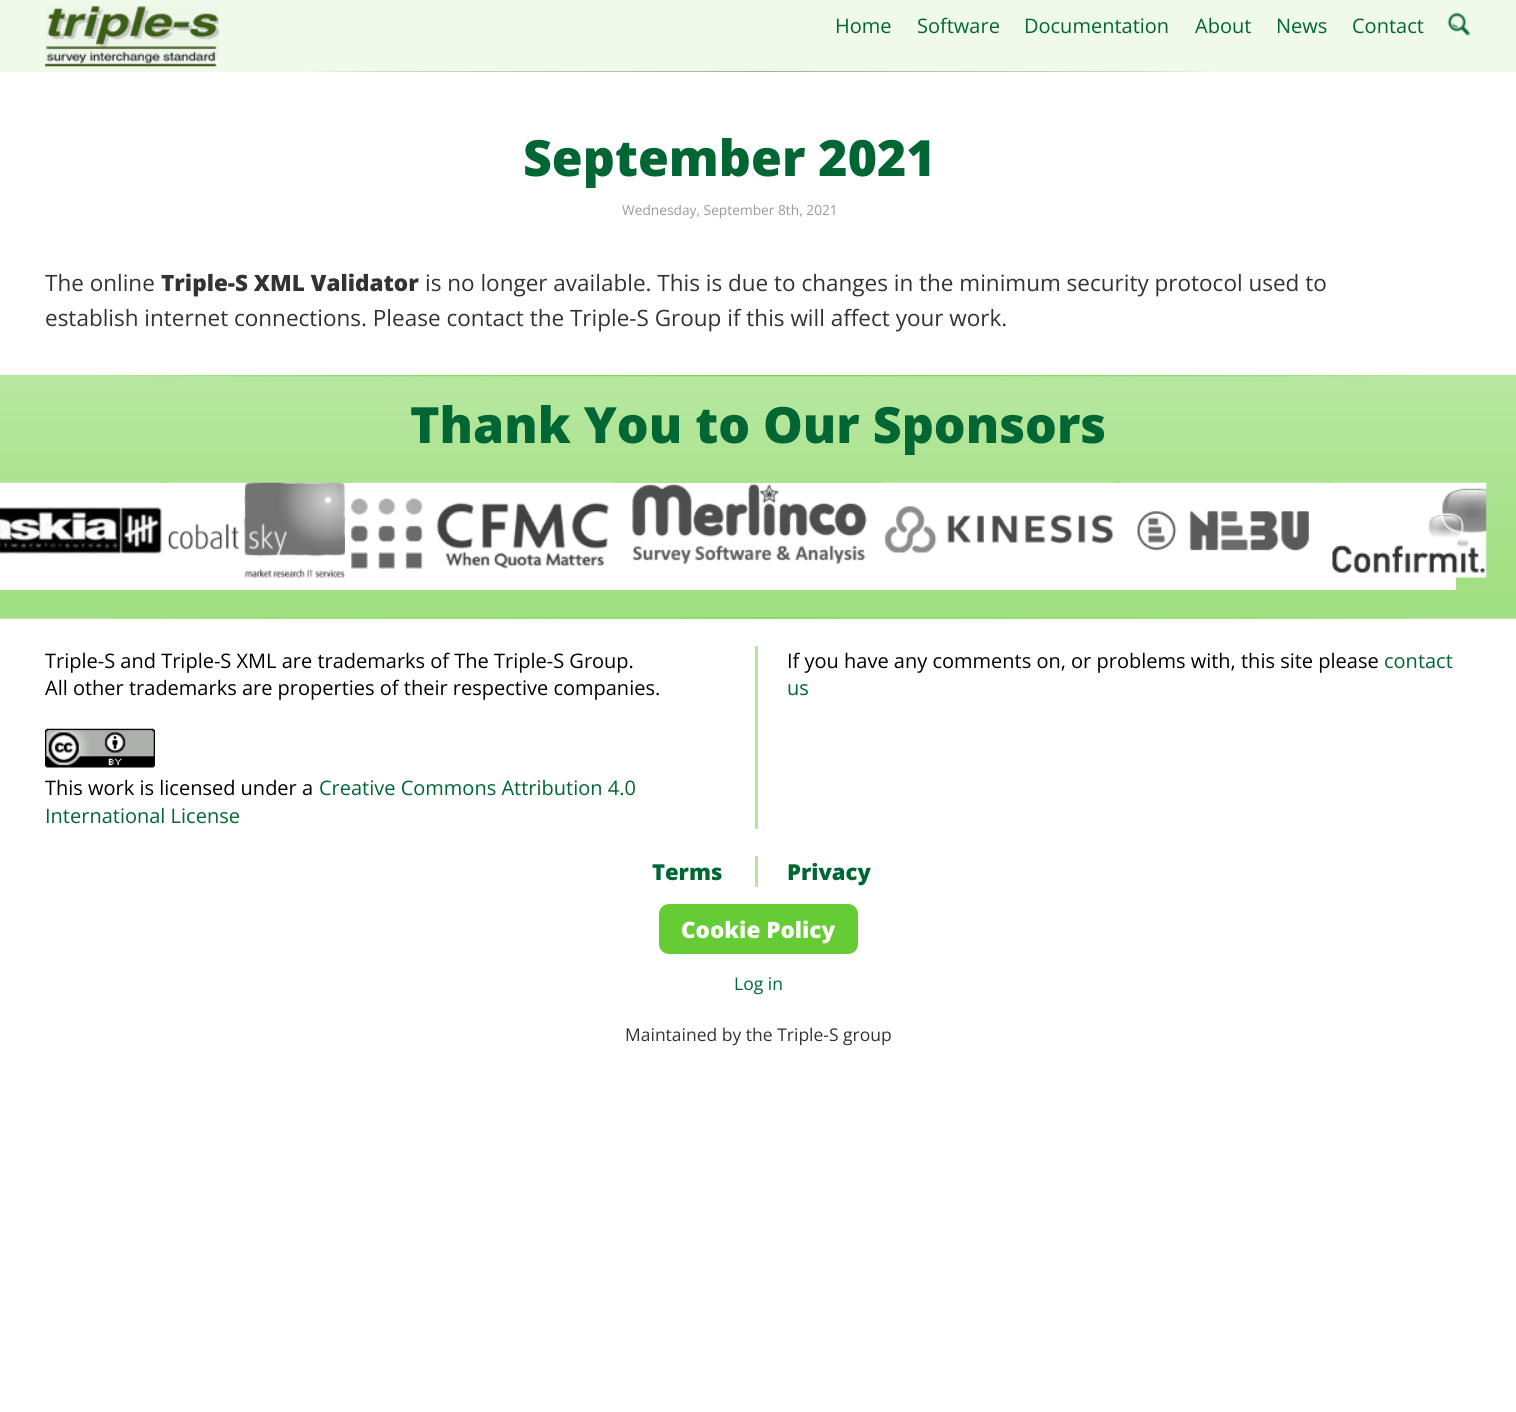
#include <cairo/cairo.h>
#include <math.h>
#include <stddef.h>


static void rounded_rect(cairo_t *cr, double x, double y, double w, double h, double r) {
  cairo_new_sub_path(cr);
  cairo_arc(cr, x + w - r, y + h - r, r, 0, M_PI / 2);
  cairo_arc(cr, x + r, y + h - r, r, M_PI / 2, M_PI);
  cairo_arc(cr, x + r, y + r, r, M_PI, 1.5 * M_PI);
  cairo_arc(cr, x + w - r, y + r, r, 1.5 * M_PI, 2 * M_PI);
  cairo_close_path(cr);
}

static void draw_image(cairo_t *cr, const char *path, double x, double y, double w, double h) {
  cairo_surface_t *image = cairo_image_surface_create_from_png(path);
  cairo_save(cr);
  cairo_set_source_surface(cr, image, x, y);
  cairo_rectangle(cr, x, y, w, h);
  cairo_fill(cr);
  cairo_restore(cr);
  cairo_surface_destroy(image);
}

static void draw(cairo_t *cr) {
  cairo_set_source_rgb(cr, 1, 1, 1);
  cairo_paint(cr);
  draw_image(cr, "images/1.png", 0, 0, 1516, 73);
  draw_image(cr, "images/2.png", 305, 71, 909, 1);
  draw_image(cr, "images/3.png", 45, 6, 174, 61);
  draw_image(cr, "images/4.png", 1447, 12, 24, 24);
  draw_image(cr, "images/5.png", 0, 375, 1516, 244);
  draw_image(cr, "images/6.png", 87, 375, 1345, 2);
  cairo_set_source_rgb(cr, 1, 1, 1);
  cairo_rectangle(cr, 0, 483, 1456, 107);
  cairo_fill(cr);
  draw_image(cr, "images/7.png", 0, 482, 163, 72);
  draw_image(cr, "images/8.png", 168, 482, 177, 96);
  draw_image(cr, "images/9.png", 351, 482, 263, 87);
  draw_image(cr, "images/10.png", 632, 483, 235, 81);
  draw_image(cr, "images/11.png", 883, 482, 231, 71);
  draw_image(cr, "images/12.png", 1120, 482, 207, 69);
  draw_image(cr, "images/13.png", 1332, 482, 155, 96);
  draw_image(cr, "images/14.png", 97, 617, 1324, 2);
  cairo_set_source_rgb(cr, 182 / 255.0, 231 / 255.0, 158 / 255.0);
  cairo_rectangle(cr, 755, 646, 3, 183);
  cairo_fill(cr);
  draw_image(cr, "images/15.png", 45, 728, 110, 40);
  cairo_rectangle(cr, 755, 856, 3, 31);
  cairo_fill(cr);
  cairo_set_source_rgb(cr, 102 / 255.0, 204 / 255.0, 51 / 255.0);
  rounded_rect(cr, 661, 906, 195, 46, 8);
  cairo_fill_preserve(cr);
  cairo_set_line_width(cr, 4);
  cairo_stroke(cr);
  cairo_select_font_face(cr, "Open Sans", CAIRO_FONT_SLANT_NORMAL, CAIRO_FONT_WEIGHT_NORMAL);
  cairo_set_font_size(cr, 20);
  cairo_set_source_rgb(cr, 0, 102 / 255.0, 51 / 255.0);
  cairo_move_to(cr, 835, 33);
  cairo_show_text(cr, "Home");
  cairo_move_to(cr, 917, 33);
  cairo_show_text(cr, "Software");
  cairo_move_to(cr, 1024, 33);
  cairo_show_text(cr, "Documentation");
  cairo_move_to(cr, 1195, 33);
  cairo_show_text(cr, "About");
  cairo_move_to(cr, 1276, 33);
  cairo_show_text(cr, "News");
  cairo_move_to(cr, 1352, 33);
  cairo_show_text(cr, "Contact");
  cairo_select_font_face(cr, "Open Sans ExtraBold", CAIRO_FONT_SLANT_NORMAL, CAIRO_FONT_WEIGHT_NORMAL);
  cairo_set_font_size(cr, 50);
  cairo_move_to(cr, 523, 176);
  cairo_show_text(cr, "September 2021");
  cairo_select_font_face(cr, "Open Sans", CAIRO_FONT_SLANT_NORMAL, CAIRO_FONT_WEIGHT_NORMAL);
  cairo_set_font_size(cr, 13.75);
  cairo_set_source_rgb(cr, 153 / 255.0, 153 / 255.0, 153 / 255.0);
  cairo_move_to(cr, 622, 215);
  cairo_show_text(cr, "Wednesday, September 8th, 2021");
  cairo_set_font_size(cr, 22.5);
  cairo_set_source_rgb(cr, 51 / 255.0, 51 / 255.0, 51 / 255.0);
  cairo_move_to(cr, 45, 291);
  cairo_show_text(cr, "The online");
  cairo_select_font_face(cr, "Open Sans ExtraBold", CAIRO_FONT_SLANT_NORMAL, CAIRO_FONT_WEIGHT_NORMAL);
  cairo_move_to(cr, 161, 291);
  cairo_show_text(cr, "Triple-S XML Validator");
  cairo_select_font_face(cr, "Open Sans", CAIRO_FONT_SLANT_NORMAL, CAIRO_FONT_WEIGHT_NORMAL);
  cairo_move_to(cr, 425, 291);
  cairo_show_text(cr, "is no longer available. This is due to changes in the minimum security protocol used to");
  cairo_move_to(cr, 45, 326);
  cairo_show_text(cr, "establish internet connections. Please contact the Triple-S Group if this will affect your work.");
  cairo_select_font_face(cr, "Open Sans ExtraBold", CAIRO_FONT_SLANT_NORMAL, CAIRO_FONT_WEIGHT_NORMAL);
  cairo_set_font_size(cr, 50);
  cairo_set_source_rgb(cr, 0, 102 / 255.0, 51 / 255.0);
  cairo_move_to(cr, 410, 443);
  cairo_show_text(cr, "Thank You to Our Sponsors");
  cairo_select_font_face(cr, "Open Sans", CAIRO_FONT_SLANT_NORMAL, CAIRO_FONT_WEIGHT_NORMAL);
  cairo_set_font_size(cr, 20);
  cairo_set_source_rgb(cr, 0, 0, 0);
  cairo_move_to(cr, 45, 668);
  cairo_show_text(cr, "Triple-S and Triple-S XML are trademarks of The Triple-S Group.");
  cairo_move_to(cr, 45, 695);
  cairo_show_text(cr, "All other trademarks are properties of their respective companies.");
  cairo_move_to(cr, 45, 795);
  cairo_show_text(cr, "This work is licensed under a");
  cairo_set_source_rgb(cr, 0, 102 / 255.0, 51 / 255.0);
  cairo_move_to(cr, 319, 795);
  cairo_show_text(cr, "Creative Commons Attribution 4.0");
  cairo_move_to(cr, 45, 823);
  cairo_show_text(cr, "International License");
  cairo_set_source_rgb(cr, 0, 0, 0);
  cairo_move_to(cr, 787, 668);
  cairo_show_text(cr, "If you have any comments on, or problems with, this site please");
  cairo_set_source_rgb(cr, 0, 102 / 255.0, 51 / 255.0);
  cairo_move_to(cr, 1384, 668);
  cairo_show_text(cr, "contact");
  cairo_move_to(cr, 787, 695);
  cairo_show_text(cr, "us");
  cairo_select_font_face(cr, "Open Sans ExtraBold", CAIRO_FONT_SLANT_NORMAL, CAIRO_FONT_WEIGHT_NORMAL);
  cairo_set_font_size(cr, 22);
  cairo_move_to(cr, 652, 880);
  cairo_show_text(cr, "Terms");
  cairo_move_to(cr, 787, 880);
  cairo_show_text(cr, "Privacy");
  cairo_set_font_size(cr, 22.5);
  cairo_set_source_rgb(cr, 1, 1, 1);
  cairo_move_to(cr, 681, 938);
  cairo_show_text(cr, "Cookie Policy");
  cairo_select_font_face(cr, "Open Sans", CAIRO_FONT_SLANT_NORMAL, CAIRO_FONT_WEIGHT_NORMAL);
  cairo_set_font_size(cr, 17.5);
  cairo_set_source_rgb(cr, 0, 102 / 255.0, 51 / 255.0);
  cairo_move_to(cr, 734, 990);
  cairo_show_text(cr, "Log in");
  cairo_set_source_rgb(cr, 51 / 255.0, 51 / 255.0, 51 / 255.0);
  cairo_move_to(cr, 625, 1041);
  cairo_show_text(cr, "Maintained by the Triple-S group");
}

int main(void) {
  cairo_surface_t *surface = cairo_image_surface_create(CAIRO_FORMAT_RGB24, 1516, 1412);
  cairo_t *cr = cairo_create(surface);
  cairo_font_options_t *options = cairo_font_options_create();
  cairo_font_options_set_hint_metrics(options, CAIRO_HINT_METRICS_OFF);
  cairo_font_options_set_hint_style(options, CAIRO_HINT_STYLE_NONE);
  cairo_set_font_options(cr, options);
  cairo_set_miter_limit(cr, 4);
  draw(cr);
  cairo_surface_write_to_png(surface, "out.png");
  cairo_font_options_destroy(options);
  cairo_destroy(cr);
  cairo_surface_destroy(surface);
  return 0;
}
